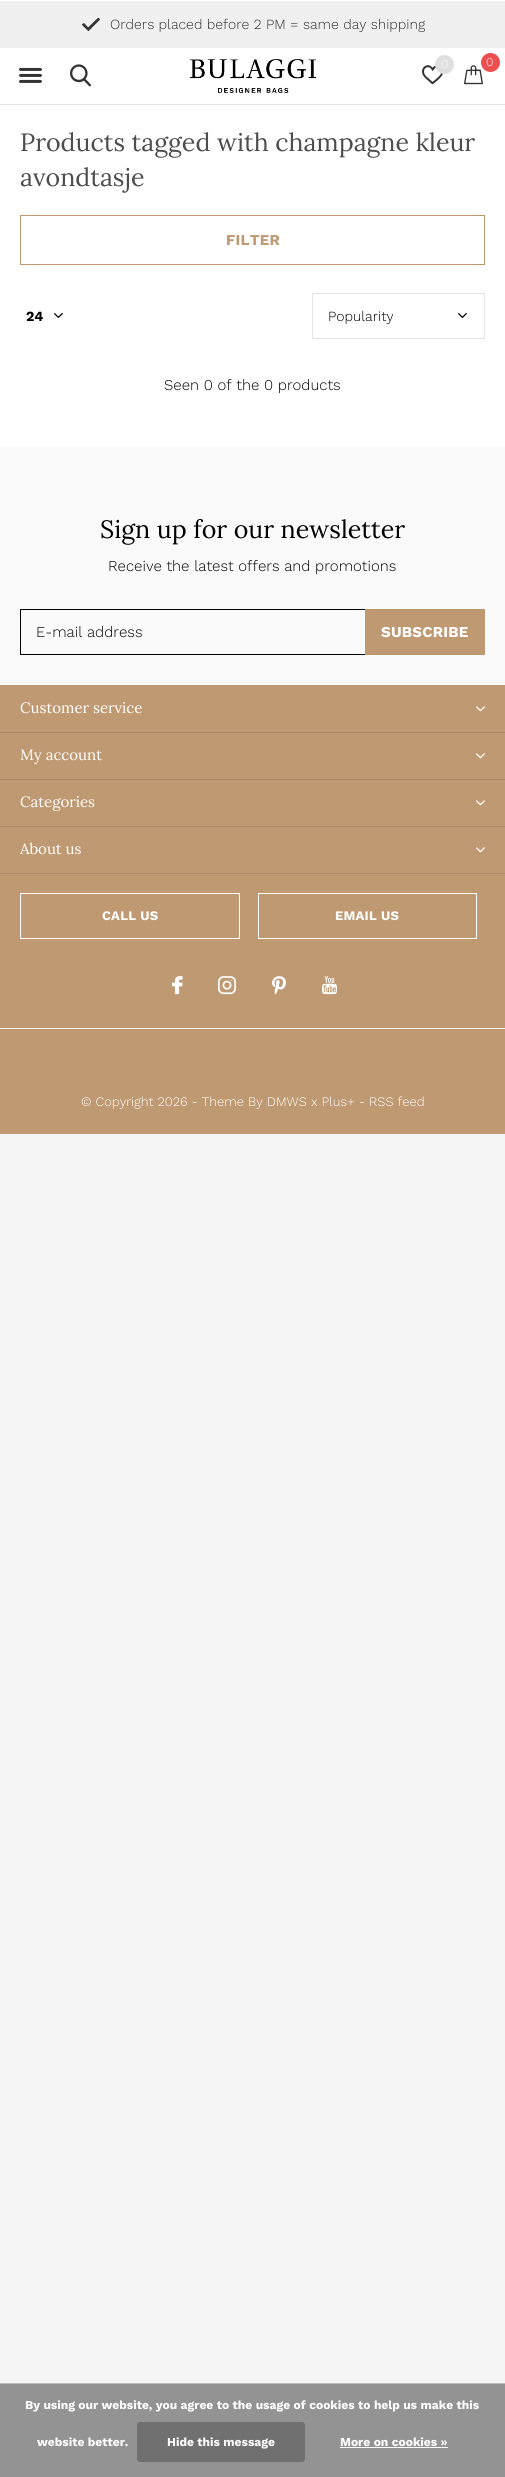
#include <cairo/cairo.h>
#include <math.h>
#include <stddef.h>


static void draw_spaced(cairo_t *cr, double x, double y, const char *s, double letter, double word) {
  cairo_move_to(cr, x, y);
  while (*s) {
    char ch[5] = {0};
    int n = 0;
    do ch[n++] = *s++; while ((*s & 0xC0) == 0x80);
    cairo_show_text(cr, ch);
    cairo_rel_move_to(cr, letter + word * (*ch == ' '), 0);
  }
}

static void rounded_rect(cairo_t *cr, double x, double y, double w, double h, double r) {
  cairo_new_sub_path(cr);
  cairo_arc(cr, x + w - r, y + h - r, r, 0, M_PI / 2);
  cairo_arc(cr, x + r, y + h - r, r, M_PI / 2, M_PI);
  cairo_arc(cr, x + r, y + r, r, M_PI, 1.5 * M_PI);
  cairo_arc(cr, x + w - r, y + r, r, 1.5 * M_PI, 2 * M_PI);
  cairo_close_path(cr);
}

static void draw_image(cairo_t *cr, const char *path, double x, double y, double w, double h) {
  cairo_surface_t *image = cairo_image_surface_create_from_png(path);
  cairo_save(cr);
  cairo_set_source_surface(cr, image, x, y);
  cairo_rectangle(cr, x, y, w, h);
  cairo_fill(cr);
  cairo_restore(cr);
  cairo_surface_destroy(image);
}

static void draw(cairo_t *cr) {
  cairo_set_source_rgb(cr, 245 / 255.0, 245 / 255.0, 245 / 255.0);
  cairo_paint(cr);
  cairo_set_source_rgb(cr, 1, 1, 1);
  cairo_rectangle(cr, 0, 0, 505, 447);
  cairo_fill(cr);
  cairo_set_source_rgb(cr, 240 / 255.0, 240 / 255.0, 240 / 255.0);
  cairo_rectangle(cr, 0, 1, 505, 47);
  cairo_fill(cr);
  draw_image(cr, "images/1.png", 82, 17, 18, 14);
  draw_image(cr, "images/2.png", 19, 67, 23, 16);
  draw_image(cr, "images/3.png", 190, 59, 126, 34);
  draw_image(cr, "images/4.png", 70, 64, 21, 23);
  draw_image(cr, "images/5.png", 422, 65, 21, 20);
  cairo_set_source_rgb(cr, 223 / 255.0, 223 / 255.0, 223 / 255.0);
  cairo_arc(cr, 444.5, 64.5, 9.5, 0, 2 * M_PI);
  cairo_fill(cr);
  draw_image(cr, "images/6.png", 464, 65, 19, 20);
  cairo_set_source_rgb(cr, 235 / 255.0, 79 / 255.0, 79 / 255.0);
  cairo_arc(cr, 490.5, 62.5, 9.5, 0, 2 * M_PI);
  cairo_fill(cr);
  cairo_set_source_rgb(cr, 223 / 255.0, 223 / 255.0, 223 / 255.0);
  cairo_rectangle(cr, 0, 104, 505, 1);
  cairo_fill(cr);
  cairo_rectangle(cr, 20.5, 215.5, 464, 49);
  cairo_set_source_rgb(cr, 191 / 255.0, 153 / 255.0, 114 / 255.0);
  cairo_set_line_width(cr, 1);
  cairo_stroke(cr);
  draw_image(cr, "images/7.png", 54, 313, 9, 5);
  draw_image(cr, "images/7.png", 458, 313, 9, 5);
  cairo_rectangle(cr, 312.5, 293.5, 172, 45);
  cairo_set_source_rgb(cr, 229 / 255.0, 229 / 255.0, 229 / 255.0);
  cairo_stroke(cr);
  cairo_set_source_rgb(cr, 250 / 255.0, 250 / 255.0, 250 / 255.0);
  cairo_rectangle(cr, 0, 447, 505, 238);
  cairo_fill(cr);
  cairo_rectangle(cr, 20.5, 609.5, 464, 45);
  cairo_set_source_rgb(cr, 0, 0, 0);
  cairo_stroke(cr);
  cairo_set_source_rgb(cr, 191 / 255.0, 153 / 255.0, 114 / 255.0);
  cairo_rectangle(cr, 365, 609, 120, 46);
  cairo_fill(cr);
  cairo_rectangle(cr, 0, 685, 505, 449);
  cairo_fill(cr);
  draw_image(cr, "images/8.png", 476, 706, 9, 6);
  cairo_set_source_rgb(cr, 172 / 255.0, 138 / 255.0, 103 / 255.0);
  cairo_rectangle(cr, 0, 732, 505, 1);
  cairo_fill(cr);
  draw_image(cr, "images/8.png", 476, 753, 9, 6);
  cairo_rectangle(cr, 0, 779, 505, 1);
  cairo_fill(cr);
  draw_image(cr, "images/8.png", 476, 800, 9, 6);
  cairo_rectangle(cr, 0, 826, 505, 1);
  cairo_fill(cr);
  draw_image(cr, "images/8.png", 476, 847, 9, 6);
  cairo_rectangle(cr, 0, 873, 505, 1);
  cairo_fill(cr);
  cairo_rectangle(cr, 20.5, 893.5, 219, 45);
  cairo_set_source_rgb(cr, 1, 1, 1);
  cairo_stroke(cr);
  cairo_rectangle(cr, 258.5, 893.5, 218, 45);
  cairo_stroke(cr);
  draw_image(cr, "images/9.png", 172, 976, 11, 19);
  draw_image(cr, "images/10.png", 218, 976, 18, 19);
  draw_image(cr, "images/11.png", 272, 976, 14, 19);
  draw_image(cr, "images/12.png", 322, 976, 15, 19);
  cairo_rectangle(cr, 0, 1028, 505, 1);
  cairo_fill(cr);
  cairo_set_source_rgb(cr, 147 / 255.0, 147 / 255.0, 147 / 255.0);
  cairo_rectangle(cr, 0, 2384, 505, 93);
  cairo_fill(cr);
  cairo_set_source_rgb(cr, 187 / 255.0, 187 / 255.0, 187 / 255.0);
  cairo_rectangle(cr, 0, 2383, 505, 1);
  cairo_fill(cr);
  cairo_set_source_rgb(cr, 112 / 255.0, 112 / 255.0, 112 / 255.0);
  rounded_rect(cr, 137, 2422, 168, 40, 3);
  cairo_fill(cr);
  cairo_set_source_rgb(cr, 1, 1, 1);
  cairo_rectangle(cr, 340, 2447, 108, 1);
  cairo_fill(cr);
  cairo_select_font_face(cr, "Work Sans Light", CAIRO_FONT_SLANT_NORMAL, CAIRO_FONT_WEIGHT_NORMAL);
  cairo_set_font_size(cr, 14);
  cairo_set_source_rgb(cr, 51 / 255.0, 51 / 255.0, 51 / 255.0);
  cairo_move_to(cr, 110, 29);
  cairo_show_text(cr, "Orders placed before 2 PM = same day shipping");
  cairo_set_font_size(cr, 12);
  cairo_set_source_rgb(cr, 1, 1, 1);
  cairo_move_to(cr, 441, 68);
  cairo_show_text(cr, "0");
  cairo_move_to(cr, 486, 66);
  cairo_show_text(cr, "0");
  cairo_select_font_face(cr, "Lora", CAIRO_FONT_SLANT_NORMAL, CAIRO_FONT_WEIGHT_NORMAL);
  cairo_set_font_size(cr, 25);
  cairo_set_source_rgb(cr, 77 / 255.0, 77 / 255.0, 77 / 255.0);
  cairo_move_to(cr, 20, 151);
  cairo_show_text(cr, "Products tagged with champagne kleur");
  cairo_move_to(cr, 20, 186);
  cairo_show_text(cr, "avondtasje");
  cairo_select_font_face(cr, "Work Sans", CAIRO_FONT_SLANT_NORMAL, CAIRO_FONT_WEIGHT_BOLD);
  cairo_set_font_size(cr, 15);
  cairo_set_source_rgb(cr, 191 / 255.0, 153 / 255.0, 114 / 255.0);
  draw_spaced(cr, 226, 245, "FILTER", 0.25, 0);
  cairo_set_font_size(cr, 14);
  cairo_set_source_rgb(cr, 0, 0, 0);
  cairo_move_to(cr, 26, 321);
  cairo_show_text(cr, "24");
  cairo_select_font_face(cr, "Work Sans Light", CAIRO_FONT_SLANT_NORMAL, CAIRO_FONT_WEIGHT_NORMAL);
  cairo_move_to(cr, 328, 321);
  cairo_show_text(cr, "Popularity");
  cairo_set_font_size(cr, 15);
  cairo_move_to(cr, 164, 390);
  cairo_show_text(cr, "Seen 0 of the 0 products");
  cairo_select_font_face(cr, "Lora", CAIRO_FONT_SLANT_NORMAL, CAIRO_FONT_WEIGHT_NORMAL);
  cairo_set_font_size(cr, 25);
  cairo_move_to(cr, 100, 538);
  cairo_show_text(cr, "Sign up for our newsletter");
  cairo_select_font_face(cr, "Work Sans Light", CAIRO_FONT_SLANT_NORMAL, CAIRO_FONT_WEIGHT_NORMAL);
  cairo_set_font_size(cr, 15);
  cairo_move_to(cr, 108, 571);
  cairo_show_text(cr, "Receive the latest offers and promotions");
  cairo_move_to(cr, 36, 637);
  cairo_show_text(cr, "E-mail address");
  cairo_select_font_face(cr, "Work Sans", CAIRO_FONT_SLANT_NORMAL, CAIRO_FONT_WEIGHT_BOLD);
  cairo_set_source_rgb(cr, 1, 1, 1);
  draw_spaced(cr, 381, 637, "SUBSCRIBE", 0.25, 0);
  cairo_select_font_face(cr, "Lora", CAIRO_FONT_SLANT_NORMAL, CAIRO_FONT_WEIGHT_NORMAL);
  cairo_move_to(cr, 20, 713);
  cairo_show_text(cr, "Customer service");
  cairo_move_to(cr, 20, 760);
  cairo_show_text(cr, "My account");
  cairo_move_to(cr, 20, 807);
  cairo_show_text(cr, "Categories");
  cairo_move_to(cr, 20, 854);
  cairo_show_text(cr, "About us");
  cairo_select_font_face(cr, "Work Sans", CAIRO_FONT_SLANT_NORMAL, CAIRO_FONT_WEIGHT_BOLD);
  cairo_set_font_size(cr, 13);
  draw_spaced(cr, 102, 920, "CALL US", 0.25, 0);
  draw_spaced(cr, 335, 920, "EMAIL US", 0.25, 0);
  cairo_select_font_face(cr, "Work Sans Light", CAIRO_FONT_SLANT_NORMAL, CAIRO_FONT_WEIGHT_NORMAL);
  cairo_move_to(cr, 81, 1106);
  cairo_show_text(cr, "© Copyright 2026 - Theme By DMWS x Plus+ - RSS feed");
  cairo_select_font_face(cr, "Work Sans", CAIRO_FONT_SLANT_NORMAL, CAIRO_FONT_WEIGHT_BOLD);
  cairo_set_font_size(cr, 12);
  cairo_move_to(cr, 25, 2409);
  cairo_show_text(cr, "By using our website, you agree to the usage of cookies to help us make this");
  cairo_move_to(cr, 37, 2446);
  cairo_show_text(cr, "website better.");
  cairo_move_to(cr, 167, 2446);
  cairo_show_text(cr, "Hide this message");
  cairo_move_to(cr, 340, 2446);
  cairo_show_text(cr, "More on cookies »");
}

int main(void) {
  cairo_surface_t *surface = cairo_image_surface_create(CAIRO_FORMAT_RGB24, 505, 2477);
  cairo_t *cr = cairo_create(surface);
  cairo_font_options_t *options = cairo_font_options_create();
  cairo_font_options_set_hint_metrics(options, CAIRO_HINT_METRICS_OFF);
  cairo_font_options_set_hint_style(options, CAIRO_HINT_STYLE_NONE);
  cairo_set_font_options(cr, options);
  cairo_set_miter_limit(cr, 4);
  draw(cr);
  cairo_surface_write_to_png(surface, "out.png");
  cairo_font_options_destroy(options);
  cairo_destroy(cr);
  cairo_surface_destroy(surface);
  return 0;
}
